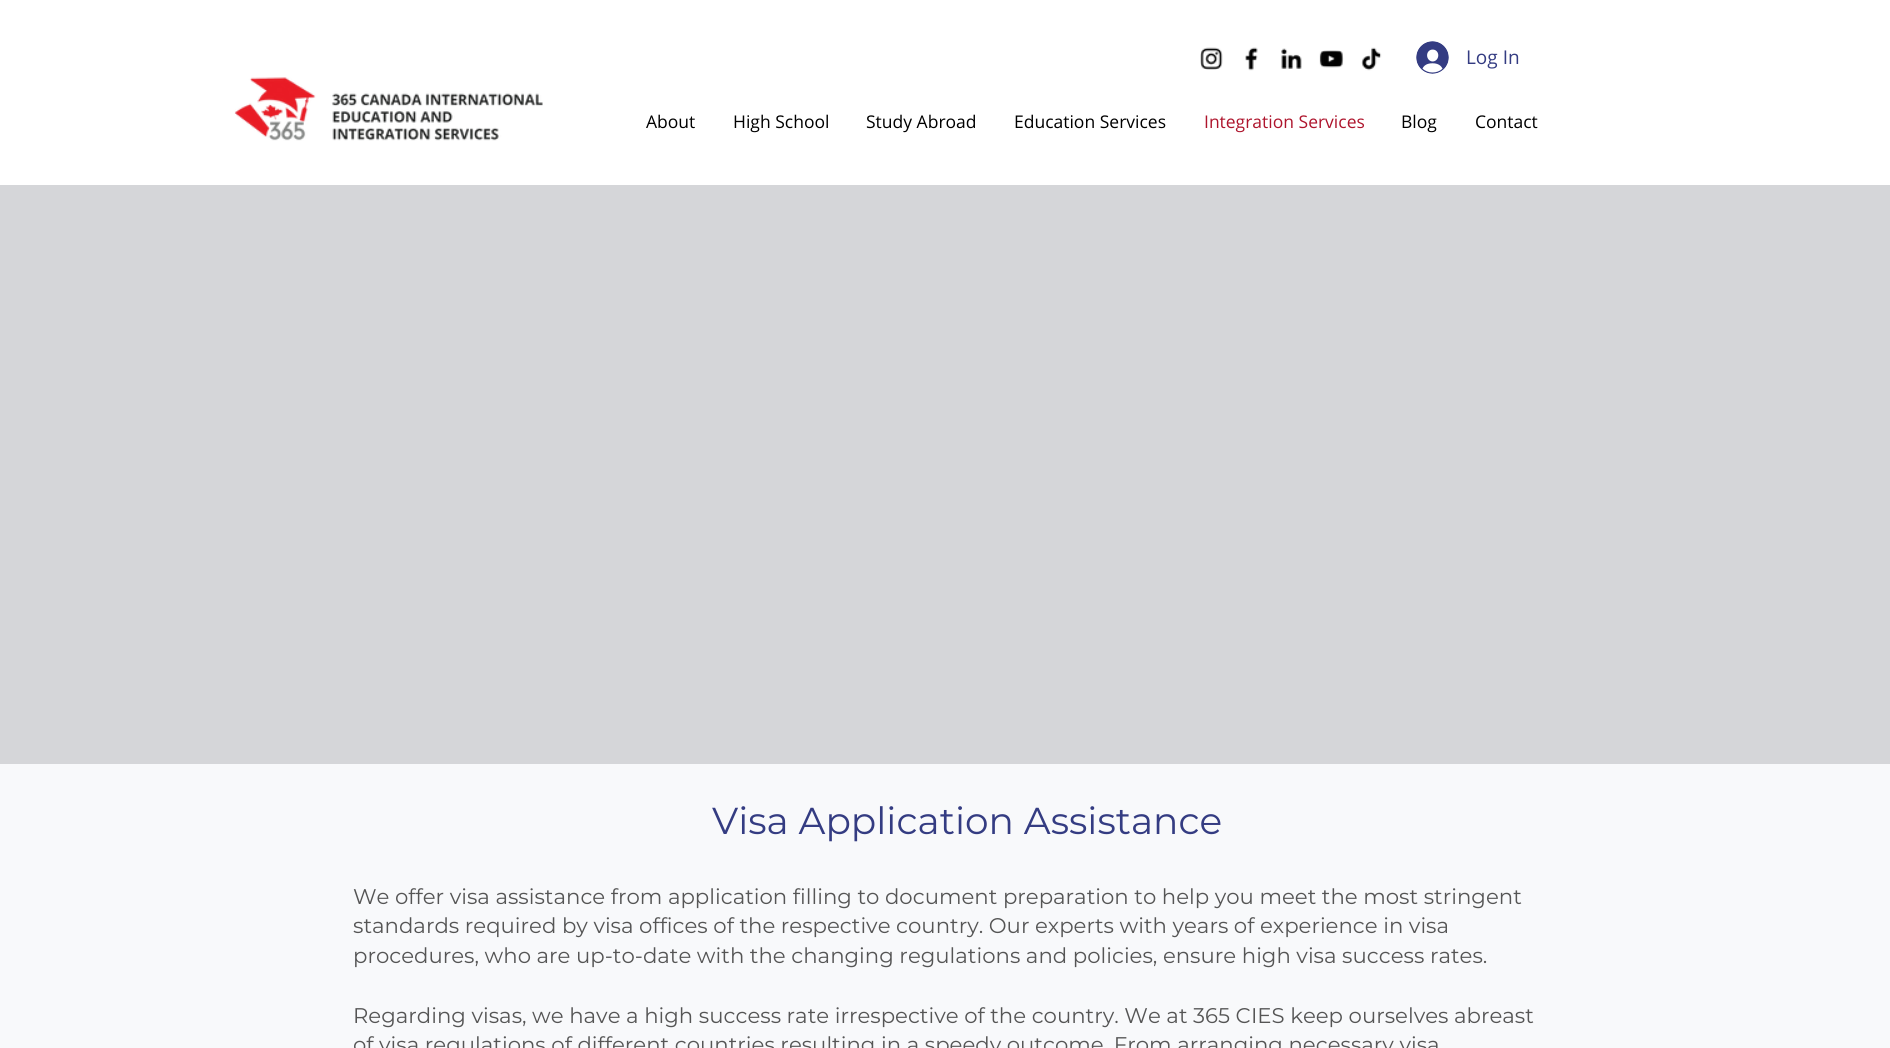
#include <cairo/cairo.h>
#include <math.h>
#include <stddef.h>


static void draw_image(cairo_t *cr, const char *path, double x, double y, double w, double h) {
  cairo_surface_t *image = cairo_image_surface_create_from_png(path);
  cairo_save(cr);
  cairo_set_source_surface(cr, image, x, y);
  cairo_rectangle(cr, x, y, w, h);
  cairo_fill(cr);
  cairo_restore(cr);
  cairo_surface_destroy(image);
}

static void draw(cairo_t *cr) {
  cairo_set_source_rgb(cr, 1, 1, 1);
  cairo_paint(cr);
  draw_image(cr, "images/1.png", 1200, 47, 23, 23);
  draw_image(cr, "images/2.png", 1245, 47, 13, 24);
  draw_image(cr, "images/3.png", 1281, 48, 21, 21);
  draw_image(cr, "images/4.png", 1319, 50, 25, 18);
  draw_image(cr, "images/5.png", 1361, 47, 21, 24);
  draw_image(cr, "images/6.png", 1416, 41, 33, 33);
  draw_image(cr, "images/7.png", 234, 77, 309, 64);
  cairo_set_source_rgb(cr, 213 / 255.0, 214 / 255.0, 217 / 255.0);
  cairo_rectangle(cr, 0, 185, 1890, 579);
  cairo_fill(cr);
  cairo_set_source_rgb(cr, 248 / 255.0, 249 / 255.0, 251 / 255.0);
  cairo_rectangle(cr, 0, 764, 1890, 284);
  cairo_fill(cr);
  cairo_select_font_face(cr, "Open Sans", CAIRO_FONT_SLANT_NORMAL, CAIRO_FONT_WEIGHT_NORMAL);
  cairo_set_font_size(cr, 19);
  cairo_set_source_rgb(cr, 52 / 255.0, 60 / 255.0, 130 / 255.0);
  cairo_move_to(cr, 1466, 64);
  cairo_show_text(cr, "Log In");
  cairo_set_font_size(cr, 17.5);
  cairo_set_source_rgb(cr, 0, 0, 0);
  cairo_move_to(cr, 646, 128);
  cairo_show_text(cr, "About");
  cairo_move_to(cr, 733, 128);
  cairo_show_text(cr, "High School");
  cairo_move_to(cr, 866, 128);
  cairo_show_text(cr, "Study Abroad");
  cairo_move_to(cr, 1014, 128);
  cairo_show_text(cr, "Education Services");
  cairo_set_source_rgb(cr, 174 / 255.0, 21 / 255.0, 45 / 255.0);
  cairo_move_to(cr, 1204, 128);
  cairo_show_text(cr, "Integration Services");
  cairo_set_source_rgb(cr, 0, 0, 0);
  cairo_move_to(cr, 1401, 128);
  cairo_show_text(cr, "Blog");
  cairo_move_to(cr, 1475, 128);
  cairo_show_text(cr, "Contact");
  cairo_select_font_face(cr, "Montserrat", CAIRO_FONT_SLANT_NORMAL, CAIRO_FONT_WEIGHT_NORMAL);
  cairo_set_font_size(cr, 37.5);
  cairo_set_source_rgb(cr, 52 / 255.0, 60 / 255.0, 130 / 255.0);
  cairo_move_to(cr, 712, 834);
  cairo_show_text(cr, "Visa Application Assistance");
  cairo_set_font_size(cr, 21.25);
  cairo_set_source_rgb(cr, 85 / 255.0, 85 / 255.0, 85 / 255.0);
  cairo_move_to(cr, 353, 904);
  cairo_show_text(cr, "We offer visa assistance from application filling to document preparation to help you meet the most stringent");
  cairo_move_to(cr, 353, 933);
  cairo_show_text(cr, "standards required by visa offices of the respective country. Our experts with years of experience in visa");
  cairo_move_to(cr, 353, 963);
  cairo_show_text(cr, "procedures, who are up-to-date with the changing regulations and policies, ensure high visa success rates.");
  cairo_move_to(cr, 353, 1023);
  cairo_show_text(cr, "Regarding visas, we have a high success rate irrespective of the country. We at 365 CIES keep ourselves abreast");
  cairo_move_to(cr, 353, 1052);
  cairo_show_text(cr, "of visa regulations of different countries resulting in a speedy outcome. From arranging necessary visa");
}

int main(void) {
  cairo_surface_t *surface = cairo_image_surface_create(CAIRO_FORMAT_RGB24, 1890, 1048);
  cairo_t *cr = cairo_create(surface);
  cairo_font_options_t *options = cairo_font_options_create();
  cairo_font_options_set_hint_metrics(options, CAIRO_HINT_METRICS_OFF);
  cairo_font_options_set_hint_style(options, CAIRO_HINT_STYLE_NONE);
  cairo_set_font_options(cr, options);
  cairo_set_miter_limit(cr, 4);
  draw(cr);
  cairo_surface_write_to_png(surface, "out.png");
  cairo_font_options_destroy(options);
  cairo_destroy(cr);
  cairo_surface_destroy(surface);
  return 0;
}
